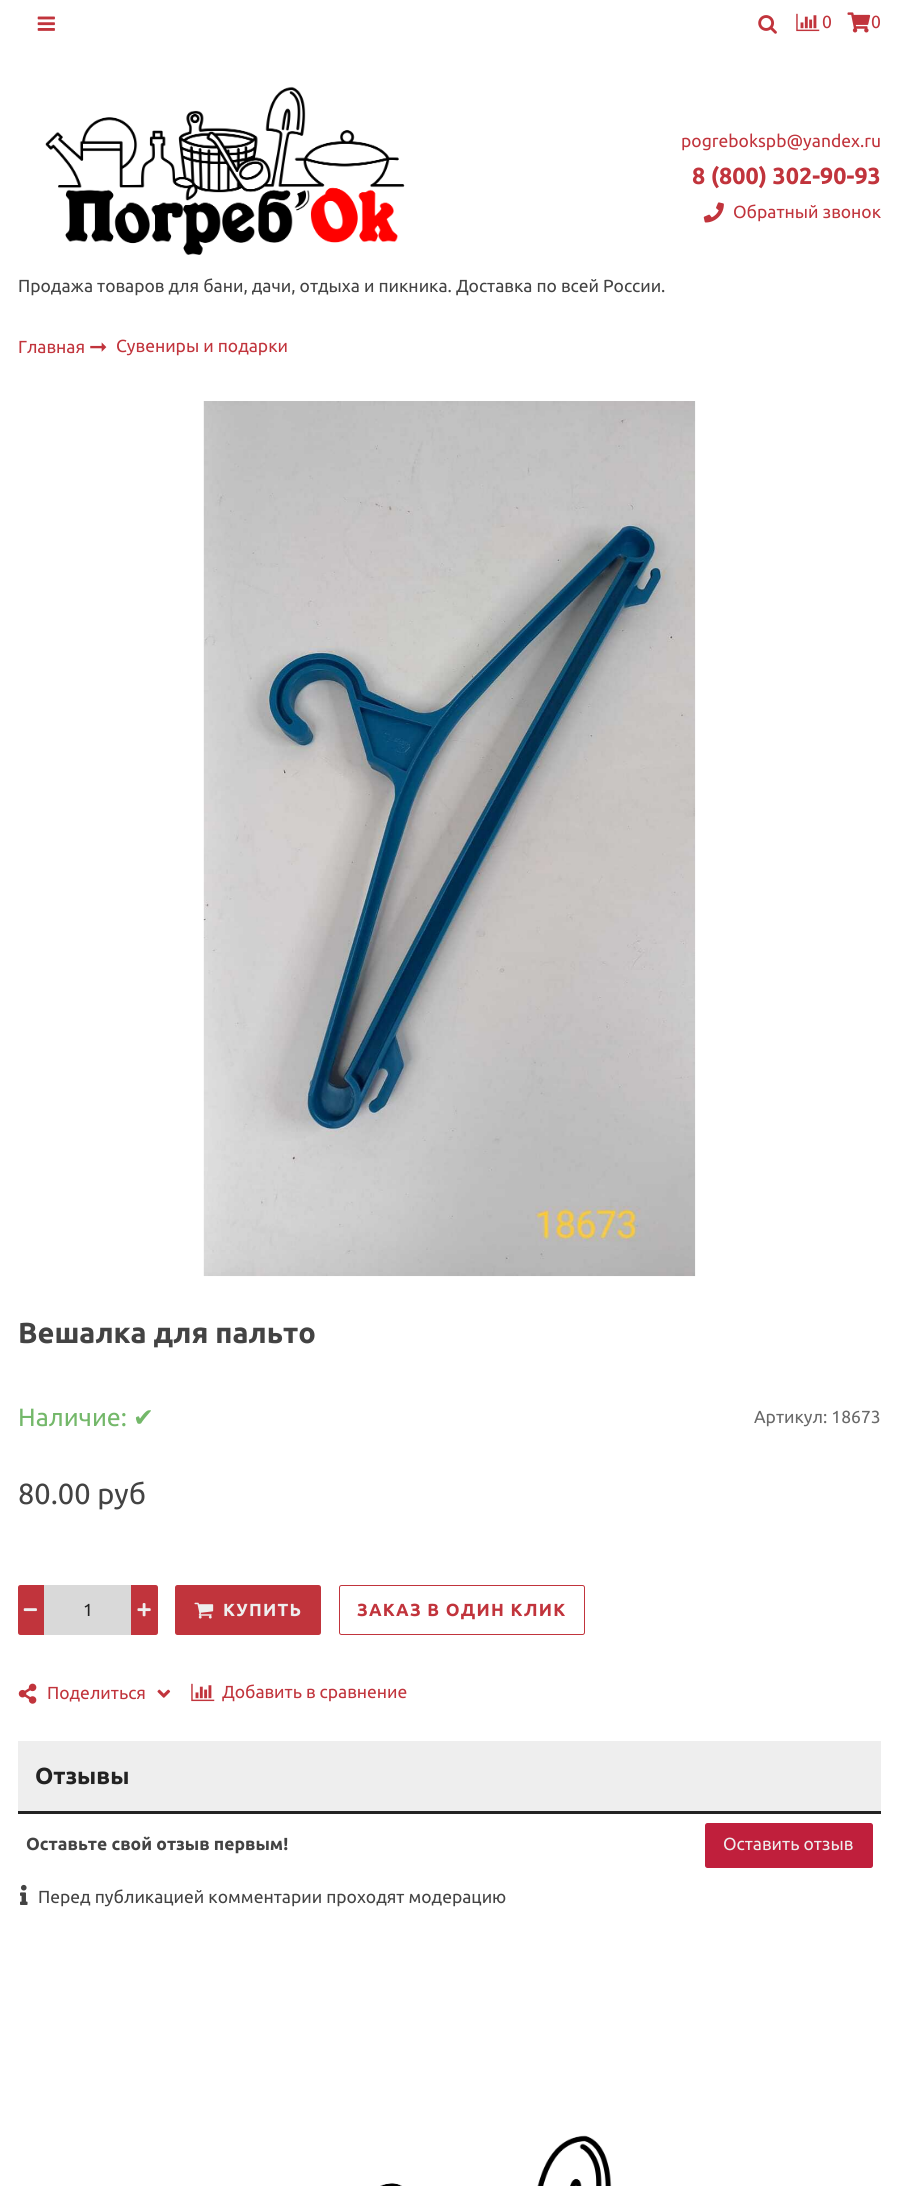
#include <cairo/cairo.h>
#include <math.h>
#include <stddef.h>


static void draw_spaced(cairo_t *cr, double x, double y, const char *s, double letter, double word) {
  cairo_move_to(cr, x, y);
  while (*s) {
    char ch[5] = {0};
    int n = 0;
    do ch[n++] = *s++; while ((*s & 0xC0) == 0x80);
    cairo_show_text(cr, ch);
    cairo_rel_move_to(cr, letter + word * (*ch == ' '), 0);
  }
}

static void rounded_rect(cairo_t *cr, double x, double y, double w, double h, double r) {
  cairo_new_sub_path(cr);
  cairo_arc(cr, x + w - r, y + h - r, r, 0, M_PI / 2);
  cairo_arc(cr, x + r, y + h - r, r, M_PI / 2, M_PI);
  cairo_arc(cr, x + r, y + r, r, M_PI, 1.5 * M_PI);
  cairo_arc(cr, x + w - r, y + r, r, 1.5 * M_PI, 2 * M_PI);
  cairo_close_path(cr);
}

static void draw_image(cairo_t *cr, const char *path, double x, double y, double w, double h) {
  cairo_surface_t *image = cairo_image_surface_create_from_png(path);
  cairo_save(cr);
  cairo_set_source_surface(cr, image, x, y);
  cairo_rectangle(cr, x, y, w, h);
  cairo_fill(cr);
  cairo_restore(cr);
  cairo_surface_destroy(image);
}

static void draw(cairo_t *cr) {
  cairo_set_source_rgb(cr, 1, 1, 1);
  cairo_paint(cr);
  draw_image(cr, "images/1.png", 37, 16, 18, 15);
  draw_image(cr, "images/2.png", 758, 15, 19, 19);
  draw_image(cr, "images/3.png", 796, 13, 24, 19);
  draw_image(cr, "images/4.png", 847, 12, 24, 21);
  draw_image(cr, "images/5.png", 45, 86, 360, 169);
  draw_image(cr, "images/6.png", 703, 202, 21, 21);
  draw_image(cr, "images/7.png", 203, 401, 493, 876);
  cairo_set_source_rgb(cr, 193 / 255.0, 52 / 255.0, 60 / 255.0);
  cairo_new_path(cr);
  cairo_move_to(cr, 20.5, 1585);
  cairo_line_to(cr, 44, 1585);
  cairo_line_to(cr, 44, 1635);
  cairo_line_to(cr, 20.5, 1635);
  cairo_curve_to(cr, 19, 1635, 18, 1634, 18, 1632.5);
  cairo_line_to(cr, 18, 1587.5);
  cairo_curve_to(cr, 18, 1586, 19, 1585, 20.5, 1585);
  cairo_close_path(cr);
  cairo_fill(cr);
  draw_image(cr, "images/8.png", 23, 1608, 14, 4);
  cairo_set_source_rgb(cr, 217 / 255.0, 217 / 255.0, 217 / 255.0);
  cairo_rectangle(cr, 44, 1585, 87, 50);
  cairo_fill(cr);
  cairo_set_source_rgb(cr, 193 / 255.0, 52 / 255.0, 60 / 255.0);
  cairo_new_path(cr);
  cairo_move_to(cr, 131, 1585);
  cairo_line_to(cr, 155.5, 1585);
  cairo_curve_to(cr, 157, 1585, 158, 1586, 158, 1587.5);
  cairo_line_to(cr, 158, 1632.5);
  cairo_curve_to(cr, 158, 1634, 157, 1635, 155.5, 1635);
  cairo_line_to(cr, 131, 1635);
  cairo_close_path(cr);
  cairo_fill(cr);
  draw_image(cr, "images/9.png", 137, 1603, 14, 14);
  rounded_rect(cr, 175, 1585, 146, 50, 2.5);
  cairo_fill(cr);
  draw_image(cr, "images/10.png", 194, 1602, 20, 17);
  rounded_rect(cr, 339.5, 1585.5, 245, 49, 2);
  cairo_set_line_width(cr, 1);
  cairo_stroke(cr);
  draw_image(cr, "images/11.png", 18, 1683, 19, 21);
  draw_image(cr, "images/12.png", 157, 1689, 14, 9);
  draw_image(cr, "images/3.png", 191, 1683, 24, 19);
  cairo_set_source_rgb(cr, 238 / 255.0, 238 / 255.0, 238 / 255.0);
  cairo_rectangle(cr, 18, 1741, 863, 70);
  cairo_fill(cr);
  cairo_set_source_rgb(cr, 34 / 255.0, 34 / 255.0, 34 / 255.0);
  cairo_rectangle(cr, 18, 1811, 863, 3);
  cairo_fill(cr);
  cairo_set_source_rgb(cr, 192 / 255.0, 31 / 255.0, 60 / 255.0);
  rounded_rect(cr, 705, 1823, 168, 45, 2.5);
  cairo_fill(cr);
  draw_image(cr, "images/13.png", 20, 1884, 8, 21);
  draw_image(cr, "images/14.png", 380, 2135, 232, 51);
  cairo_select_font_face(cr, "Ubuntu", CAIRO_FONT_SLANT_NORMAL, CAIRO_FONT_WEIGHT_NORMAL);
  cairo_set_font_size(cr, 17.5);
  cairo_set_source_rgb(cr, 193 / 255.0, 52 / 255.0, 60 / 255.0);
  cairo_move_to(cr, 822, 28);
  cairo_show_text(cr, "0");
  cairo_move_to(cr, 871, 28);
  cairo_show_text(cr, "0");
  cairo_move_to(cr, 681, 147);
  cairo_show_text(cr, "pogrebokspb@yandex.ru");
  cairo_select_font_face(cr, "Ubuntu", CAIRO_FONT_SLANT_NORMAL, CAIRO_FONT_WEIGHT_BOLD);
  cairo_set_font_size(cr, 23.25);
  cairo_move_to(cr, 692, 184);
  cairo_show_text(cr, "8 (800) 302-90-93");
  cairo_select_font_face(cr, "Ubuntu", CAIRO_FONT_SLANT_NORMAL, CAIRO_FONT_WEIGHT_NORMAL);
  cairo_set_font_size(cr, 17.5);
  cairo_move_to(cr, 733, 218);
  cairo_show_text(cr, "Обратный звонок");
  cairo_set_source_rgb(cr, 67 / 255.0, 67 / 255.0, 67 / 255.0);
  cairo_move_to(cr, 18, 292);
  cairo_show_text(cr, "Продажа товаров для бани, дачи, отдыха и пикника. Доставка по всей России.");
  cairo_set_source_rgb(cr, 193 / 255.0, 52 / 255.0, 60 / 255.0);
  cairo_move_to(cr, 18, 353);
  cairo_show_text(cr, "Главная");
  cairo_select_font_face(cr, "DejaVu Sans", CAIRO_FONT_SLANT_NORMAL, CAIRO_FONT_WEIGHT_NORMAL);
  cairo_set_font_size(cr, 22);
  cairo_move_to(cr, 89, 354);
  cairo_show_text(cr, "➞");
  cairo_select_font_face(cr, "Ubuntu", CAIRO_FONT_SLANT_NORMAL, CAIRO_FONT_WEIGHT_NORMAL);
  cairo_set_font_size(cr, 17.5);
  cairo_move_to(cr, 116, 352);
  cairo_show_text(cr, "Сувениры и подарки");
  cairo_select_font_face(cr, "Ubuntu", CAIRO_FONT_SLANT_NORMAL, CAIRO_FONT_WEIGHT_BOLD);
  cairo_set_font_size(cr, 29);
  cairo_set_source_rgb(cr, 67 / 255.0, 67 / 255.0, 67 / 255.0);
  cairo_move_to(cr, 18, 1343);
  cairo_show_text(cr, "Вешалка для пальто");
  cairo_select_font_face(cr, "Ubuntu", CAIRO_FONT_SLANT_NORMAL, CAIRO_FONT_WEIGHT_NORMAL);
  cairo_set_font_size(cr, 25);
  cairo_set_source_rgb(cr, 116 / 255.0, 184 / 255.0, 106 / 255.0);
  cairo_move_to(cr, 18, 1426);
  cairo_show_text(cr, "Наличие:");
  cairo_select_font_face(cr, "DejaVu Sans", CAIRO_FONT_SLANT_NORMAL, CAIRO_FONT_WEIGHT_NORMAL);
  cairo_move_to(cr, 133, 1426);
  cairo_show_text(cr, "✔");
  cairo_select_font_face(cr, "Ubuntu", CAIRO_FONT_SLANT_NORMAL, CAIRO_FONT_WEIGHT_NORMAL);
  cairo_set_font_size(cr, 17.5);
  cairo_set_source_rgb(cr, 105 / 255.0, 105 / 255.0, 105 / 255.0);
  cairo_move_to(cr, 754, 1423);
  cairo_show_text(cr, "Артикул: 18673");
  cairo_set_font_size(cr, 29);
  cairo_set_source_rgb(cr, 67 / 255.0, 67 / 255.0, 67 / 255.0);
  cairo_move_to(cr, 18, 1504);
  cairo_show_text(cr, "80.00 руб");
  cairo_set_font_size(cr, 17.5);
  cairo_set_source_rgb(cr, 34 / 255.0, 34 / 255.0, 34 / 255.0);
  cairo_move_to(cr, 83, 1616);
  cairo_show_text(cr, "1");
  cairo_select_font_face(cr, "Ubuntu", CAIRO_FONT_SLANT_NORMAL, CAIRO_FONT_WEIGHT_BOLD);
  cairo_set_source_rgb(cr, 238 / 255.0, 238 / 255.0, 238 / 255.0);
  draw_spaced(cr, 223, 1616, "КУПИТЬ", 1.25, 0);
  cairo_set_source_rgb(cr, 193 / 255.0, 52 / 255.0, 60 / 255.0);
  draw_spaced(cr, 357, 1616, "ЗАКАЗ В ОДИН КЛИК", 1.25, 0);
  cairo_select_font_face(cr, "Ubuntu", CAIRO_FONT_SLANT_NORMAL, CAIRO_FONT_WEIGHT_NORMAL);
  cairo_move_to(cr, 47, 1699);
  cairo_show_text(cr, "Поделиться");
  cairo_move_to(cr, 222, 1698);
  cairo_show_text(cr, "Добавить в сравнение");
  cairo_select_font_face(cr, "Ubuntu", CAIRO_FONT_SLANT_NORMAL, CAIRO_FONT_WEIGHT_BOLD);
  cairo_set_font_size(cr, 23.25);
  cairo_set_source_rgb(cr, 34 / 255.0, 34 / 255.0, 34 / 255.0);
  cairo_move_to(cr, 35, 1784);
  cairo_show_text(cr, "Отзывы");
  cairo_set_font_size(cr, 17.5);
  cairo_set_source_rgb(cr, 67 / 255.0, 67 / 255.0, 67 / 255.0);
  cairo_move_to(cr, 26, 1850);
  cairo_show_text(cr, "Оставьте свой отзыв первым!");
  cairo_select_font_face(cr, "Ubuntu", CAIRO_FONT_SLANT_NORMAL, CAIRO_FONT_WEIGHT_NORMAL);
  cairo_set_source_rgb(cr, 238 / 255.0, 238 / 255.0, 238 / 255.0);
  cairo_move_to(cr, 723, 1850);
  cairo_show_text(cr, "Оставить отзыв");
  cairo_set_source_rgb(cr, 67 / 255.0, 67 / 255.0, 67 / 255.0);
  cairo_move_to(cr, 38, 1903);
  cairo_show_text(cr, "Перед публикацией комментарии проходят модерацию");
}

int main(void) {
  cairo_surface_t *surface = cairo_image_surface_create(CAIRO_FORMAT_RGB24, 898, 2186);
  cairo_t *cr = cairo_create(surface);
  cairo_font_options_t *options = cairo_font_options_create();
  cairo_font_options_set_hint_metrics(options, CAIRO_HINT_METRICS_OFF);
  cairo_font_options_set_hint_style(options, CAIRO_HINT_STYLE_NONE);
  cairo_set_font_options(cr, options);
  cairo_set_miter_limit(cr, 4);
  draw(cr);
  cairo_surface_write_to_png(surface, "out.png");
  cairo_font_options_destroy(options);
  cairo_destroy(cr);
  cairo_surface_destroy(surface);
  return 0;
}
